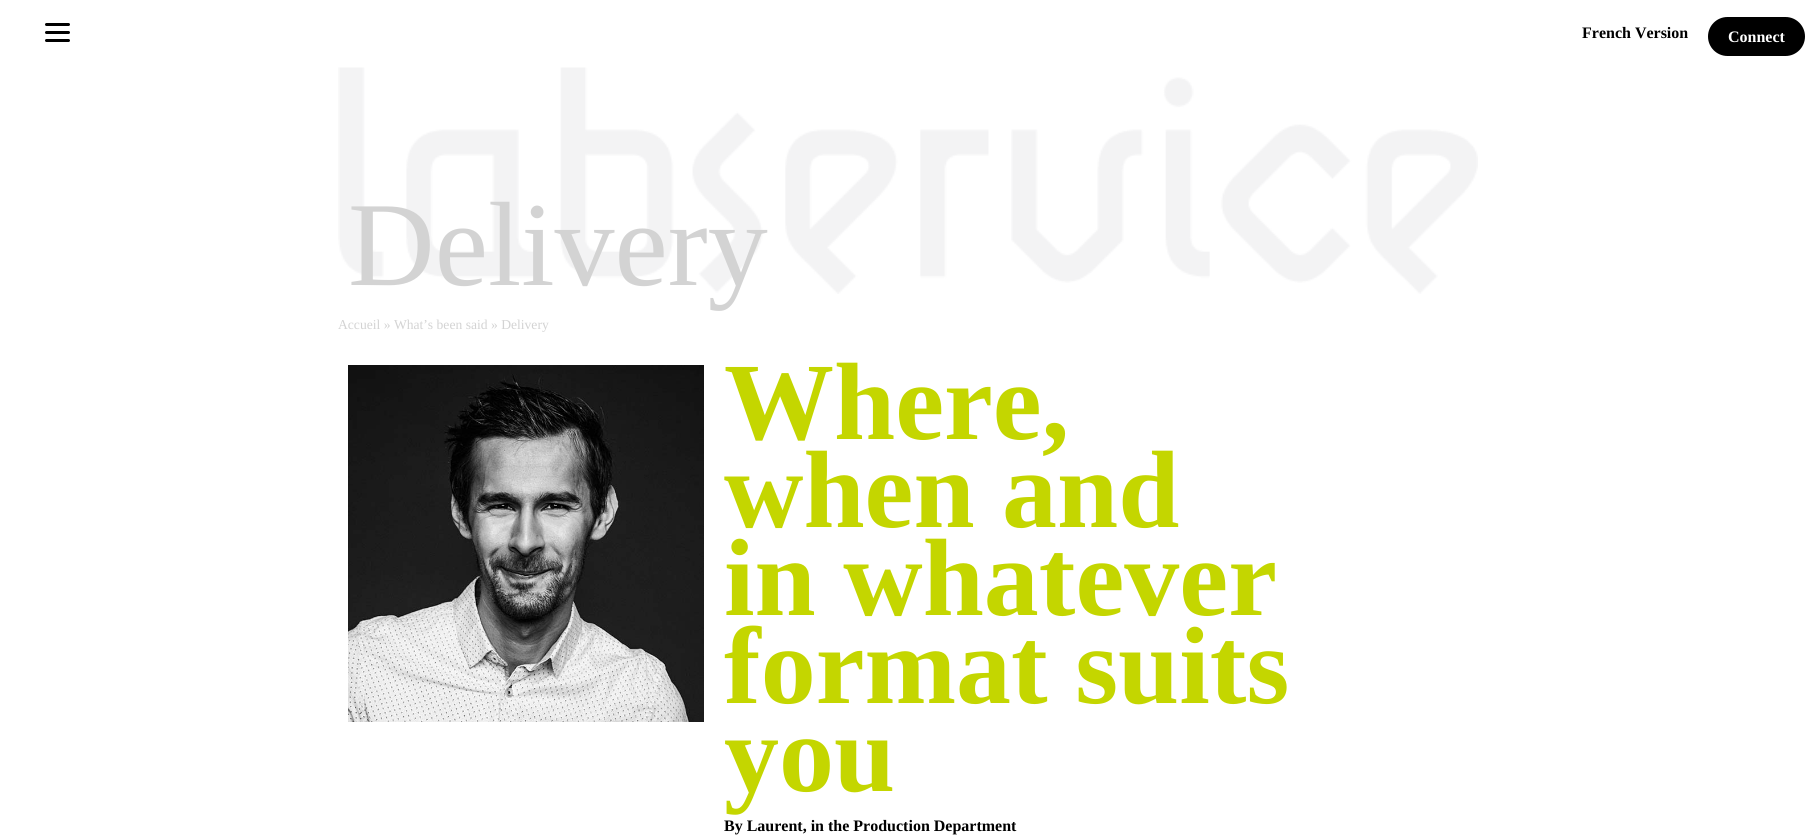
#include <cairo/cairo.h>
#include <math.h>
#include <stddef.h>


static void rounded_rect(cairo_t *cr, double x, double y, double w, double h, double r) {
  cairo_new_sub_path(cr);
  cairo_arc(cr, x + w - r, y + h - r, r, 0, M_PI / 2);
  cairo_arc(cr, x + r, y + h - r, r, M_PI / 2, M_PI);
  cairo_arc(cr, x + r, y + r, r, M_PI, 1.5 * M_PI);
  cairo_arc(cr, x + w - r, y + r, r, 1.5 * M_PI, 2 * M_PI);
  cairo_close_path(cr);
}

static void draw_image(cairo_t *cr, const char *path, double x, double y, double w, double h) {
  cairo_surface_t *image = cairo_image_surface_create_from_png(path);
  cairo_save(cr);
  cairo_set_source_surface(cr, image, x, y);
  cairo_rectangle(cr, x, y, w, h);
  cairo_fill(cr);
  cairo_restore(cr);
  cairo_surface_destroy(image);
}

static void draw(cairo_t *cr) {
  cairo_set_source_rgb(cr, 1, 1, 1);
  cairo_paint(cr);
  cairo_set_source_rgb(cr, 0, 0, 0);
  rounded_rect(cr, 45, 31, 25, 3, 1.5);
  cairo_fill(cr);
  rounded_rect(cr, 45, 23, 25, 3, 1.5);
  cairo_fill(cr);
  rounded_rect(cr, 45, 39, 25, 3, 1.5);
  cairo_fill(cr);
  rounded_rect(cr, 1708, 17, 97, 39, 19.5);
  cairo_fill(cr);
  draw_image(cr, "images/1.png", 338, 67, 1140, 227);
  draw_image(cr, "images/2.png", 348, 365, 356, 357);
  cairo_select_font_face(cr, "Liberation Serif", CAIRO_FONT_SLANT_NORMAL, CAIRO_FONT_WEIGHT_BOLD);
  cairo_set_font_size(cr, 16);
  cairo_move_to(cr, 1582, 38);
  cairo_show_text(cr, "French Version");
  cairo_set_source_rgb(cr, 1, 1, 1);
  cairo_move_to(cr, 1728, 42);
  cairo_show_text(cr, "Connect");
  cairo_select_font_face(cr, "Liberation Serif", CAIRO_FONT_SLANT_NORMAL, CAIRO_FONT_WEIGHT_NORMAL);
  cairo_set_font_size(cr, 120);
  cairo_set_source_rgb(cr, 211 / 255.0, 211 / 255.0, 211 / 255.0);
  cairo_move_to(cr, 348, 285);
  cairo_show_text(cr, "Delivery");
  cairo_set_font_size(cr, 13.6);
  cairo_move_to(cr, 338, 329);
  cairo_show_text(cr, "Accueil » What’s been said » Delivery");
  cairo_select_font_face(cr, "Liberation Serif", CAIRO_FONT_SLANT_NORMAL, CAIRO_FONT_WEIGHT_BOLD);
  cairo_set_font_size(cr, 110);
  cairo_set_source_rgb(cr, 196 / 255.0, 214 / 255.0, 0);
  cairo_move_to(cr, 724, 439);
  cairo_show_text(cr, "Where,");
  cairo_move_to(cr, 724, 527);
  cairo_show_text(cr, "when and");
  cairo_move_to(cr, 724, 615);
  cairo_show_text(cr, "in whatever");
  cairo_move_to(cr, 724, 703);
  cairo_show_text(cr, "format suits");
  cairo_move_to(cr, 724, 791);
  cairo_show_text(cr, "you");
  cairo_set_font_size(cr, 16);
  cairo_set_source_rgb(cr, 0, 0, 0);
  cairo_move_to(cr, 724, 831);
  cairo_show_text(cr, "By Laurent, in the Production Department");
}

int main(void) {
  cairo_surface_t *surface = cairo_image_surface_create(CAIRO_FORMAT_RGB24, 1815, 840);
  cairo_t *cr = cairo_create(surface);
  cairo_font_options_t *options = cairo_font_options_create();
  cairo_font_options_set_hint_metrics(options, CAIRO_HINT_METRICS_OFF);
  cairo_font_options_set_hint_style(options, CAIRO_HINT_STYLE_NONE);
  cairo_set_font_options(cr, options);
  cairo_set_miter_limit(cr, 4);
  draw(cr);
  cairo_surface_write_to_png(surface, "out.png");
  cairo_font_options_destroy(options);
  cairo_destroy(cr);
  cairo_surface_destroy(surface);
  return 0;
}
